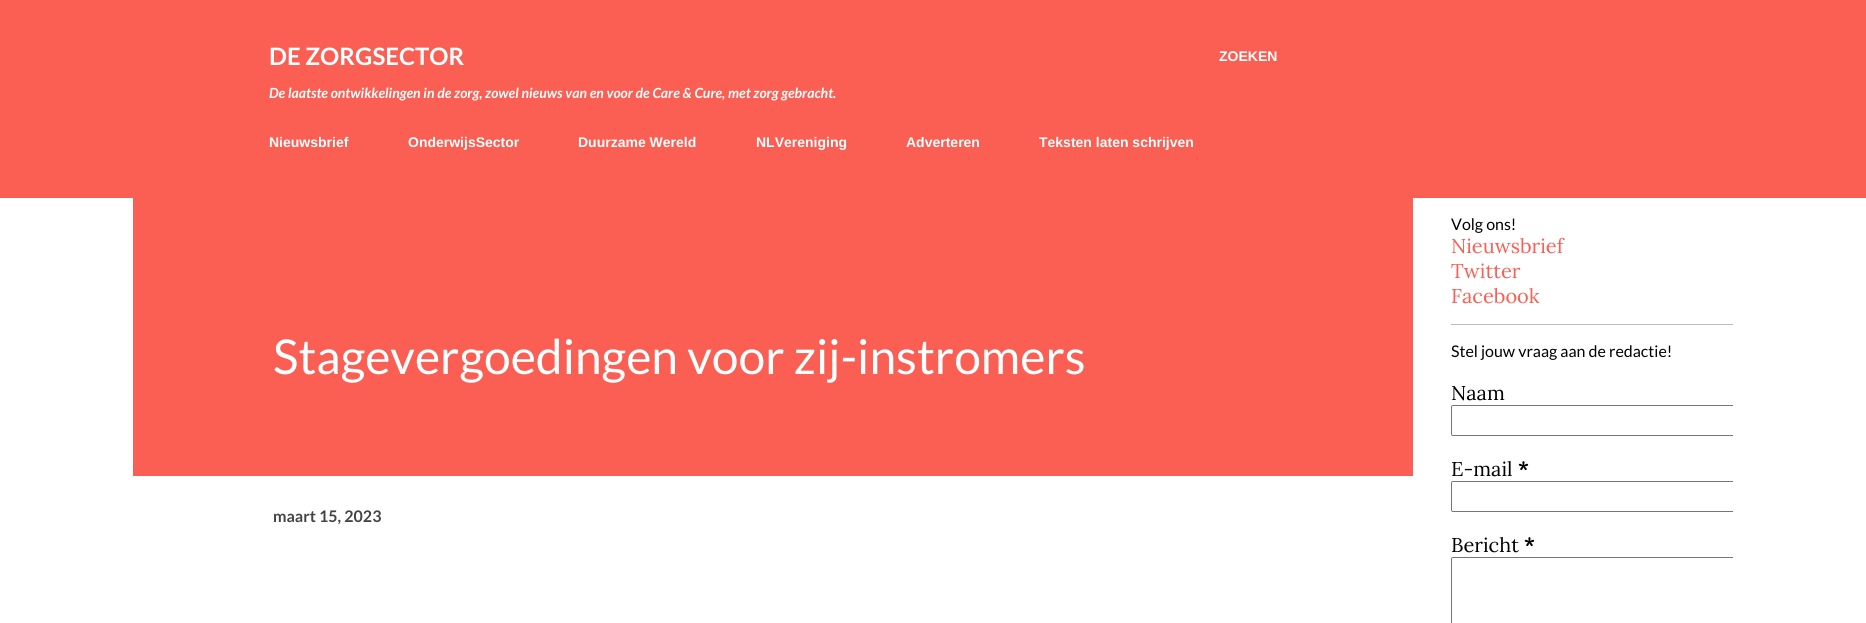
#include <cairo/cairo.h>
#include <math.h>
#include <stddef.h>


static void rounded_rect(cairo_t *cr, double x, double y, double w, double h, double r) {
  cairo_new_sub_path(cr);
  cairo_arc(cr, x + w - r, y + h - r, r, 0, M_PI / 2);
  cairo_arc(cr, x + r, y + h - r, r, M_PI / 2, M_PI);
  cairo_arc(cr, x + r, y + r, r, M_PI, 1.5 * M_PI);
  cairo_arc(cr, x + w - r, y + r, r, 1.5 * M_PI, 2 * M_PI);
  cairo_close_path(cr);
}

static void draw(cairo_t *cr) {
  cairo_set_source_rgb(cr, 1, 1, 1);
  cairo_paint(cr);
  cairo_set_source_rgb(cr, 251 / 255.0, 94 / 255.0, 83 / 255.0);
  cairo_rectangle(cr, 0, 0, 1866, 198);
  cairo_fill(cr);
  cairo_rectangle(cr, 133, 198, 1280, 278);
  cairo_fill(cr);
  cairo_set_source_rgb(cr, 189 / 255.0, 189 / 255.0, 189 / 255.0);
  cairo_rectangle(cr, 1451, 324, 282, 1);
  cairo_fill(cr);
  cairo_save(cr);
  cairo_rectangle(cr, 1413, 198, 320, 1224);
  cairo_clip(cr);
  rounded_rect(cr, 1451.5, 405.5, 348, 30, 1.5);
  cairo_set_source_rgb(cr, 118 / 255.0, 118 / 255.0, 118 / 255.0);
  cairo_set_line_width(cr, 1);
  cairo_stroke(cr);
  rounded_rect(cr, 1451.5, 481.5, 348, 30, 1.5);
  cairo_stroke(cr);
  rounded_rect(cr, 1451.5, 557.5, 295, 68, 1.5);
  cairo_stroke(cr);
  cairo_restore(cr);
  cairo_select_font_face(cr, "Lato", CAIRO_FONT_SLANT_NORMAL, CAIRO_FONT_WEIGHT_BOLD);
  cairo_set_font_size(cr, 24);
  cairo_set_source_rgb(cr, 1, 1, 1);
  cairo_move_to(cr, 269, 65);
  cairo_show_text(cr, "DE ZORGSECTOR");
  cairo_select_font_face(cr, "Lato", CAIRO_FONT_SLANT_ITALIC, CAIRO_FONT_WEIGHT_BOLD);
  cairo_set_font_size(cr, 14);
  cairo_move_to(cr, 269, 98);
  cairo_show_text(cr, "De laatste ontwikkelingen in de zorg, zowel nieuws van en voor de Care & Cure, met zorg gebracht.");
  cairo_select_font_face(cr, "Liberation Sans", CAIRO_FONT_SLANT_NORMAL, CAIRO_FONT_WEIGHT_BOLD);
  cairo_move_to(cr, 1219, 61);
  cairo_show_text(cr, "ZOEKEN");
  cairo_move_to(cr, 269, 147);
  cairo_show_text(cr, "Nieuwsbrief");
  cairo_move_to(cr, 408, 147);
  cairo_show_text(cr, "OnderwijsSector");
  cairo_move_to(cr, 578, 147);
  cairo_show_text(cr, "Duurzame Wereld");
  cairo_move_to(cr, 756, 147);
  cairo_show_text(cr, "NLVereniging");
  cairo_move_to(cr, 906, 147);
  cairo_show_text(cr, "Adverteren");
  cairo_move_to(cr, 1039, 147);
  cairo_show_text(cr, "Teksten laten schrijven");
  cairo_select_font_face(cr, "Lato", CAIRO_FONT_SLANT_NORMAL, CAIRO_FONT_WEIGHT_NORMAL);
  cairo_set_font_size(cr, 48);
  cairo_move_to(cr, 273, 374);
  cairo_show_text(cr, "Stagevergoedingen voor zij-instromers");
  cairo_select_font_face(cr, "Lato", CAIRO_FONT_SLANT_NORMAL, CAIRO_FONT_WEIGHT_BOLD);
  cairo_set_font_size(cr, 16);
  cairo_set_source_rgb(cr, 68 / 255.0, 68 / 255.0, 68 / 255.0);
  cairo_move_to(cr, 273, 522);
  cairo_show_text(cr, "maart 15, 2023");
  cairo_select_font_face(cr, "Lato", CAIRO_FONT_SLANT_NORMAL, CAIRO_FONT_WEIGHT_NORMAL);
  cairo_set_source_rgb(cr, 0, 0, 0);
  cairo_move_to(cr, 1451, 230);
  cairo_show_text(cr, "Volg ons!");
  cairo_select_font_face(cr, "Lora", CAIRO_FONT_SLANT_NORMAL, CAIRO_FONT_WEIGHT_NORMAL);
  cairo_set_font_size(cr, 20);
  cairo_set_source_rgb(cr, 251 / 255.0, 94 / 255.0, 83 / 255.0);
  cairo_move_to(cr, 1451, 253);
  cairo_show_text(cr, "Nieuwsbrief");
  cairo_move_to(cr, 1451, 278);
  cairo_show_text(cr, "Twitter");
  cairo_move_to(cr, 1451, 303);
  cairo_show_text(cr, "Facebook");
  cairo_select_font_face(cr, "Lato", CAIRO_FONT_SLANT_NORMAL, CAIRO_FONT_WEIGHT_NORMAL);
  cairo_set_font_size(cr, 16);
  cairo_set_source_rgb(cr, 0, 0, 0);
  cairo_move_to(cr, 1451, 357);
  cairo_show_text(cr, "Stel jouw vraag aan de redactie!");
  cairo_select_font_face(cr, "Lora", CAIRO_FONT_SLANT_NORMAL, CAIRO_FONT_WEIGHT_NORMAL);
  cairo_set_font_size(cr, 20);
  cairo_move_to(cr, 1451, 400);
  cairo_show_text(cr, "Naam");
  cairo_move_to(cr, 1451, 476);
  cairo_show_text(cr, "E-mail");
  cairo_select_font_face(cr, "Lora", CAIRO_FONT_SLANT_NORMAL, CAIRO_FONT_WEIGHT_BOLD);
  cairo_move_to(cr, 1518, 476);
  cairo_show_text(cr, "*");
  cairo_select_font_face(cr, "Lora", CAIRO_FONT_SLANT_NORMAL, CAIRO_FONT_WEIGHT_NORMAL);
  cairo_move_to(cr, 1451, 552);
  cairo_show_text(cr, "Bericht");
  cairo_select_font_face(cr, "Lora", CAIRO_FONT_SLANT_NORMAL, CAIRO_FONT_WEIGHT_BOLD);
  cairo_move_to(cr, 1524, 552);
  cairo_show_text(cr, "*");
}

int main(void) {
  cairo_surface_t *surface = cairo_image_surface_create(CAIRO_FORMAT_RGB24, 1866, 623);
  cairo_t *cr = cairo_create(surface);
  cairo_font_options_t *options = cairo_font_options_create();
  cairo_font_options_set_hint_metrics(options, CAIRO_HINT_METRICS_OFF);
  cairo_font_options_set_hint_style(options, CAIRO_HINT_STYLE_NONE);
  cairo_set_font_options(cr, options);
  cairo_set_miter_limit(cr, 4);
  draw(cr);
  cairo_surface_write_to_png(surface, "out.png");
  cairo_font_options_destroy(options);
  cairo_destroy(cr);
  cairo_surface_destroy(surface);
  return 0;
}
